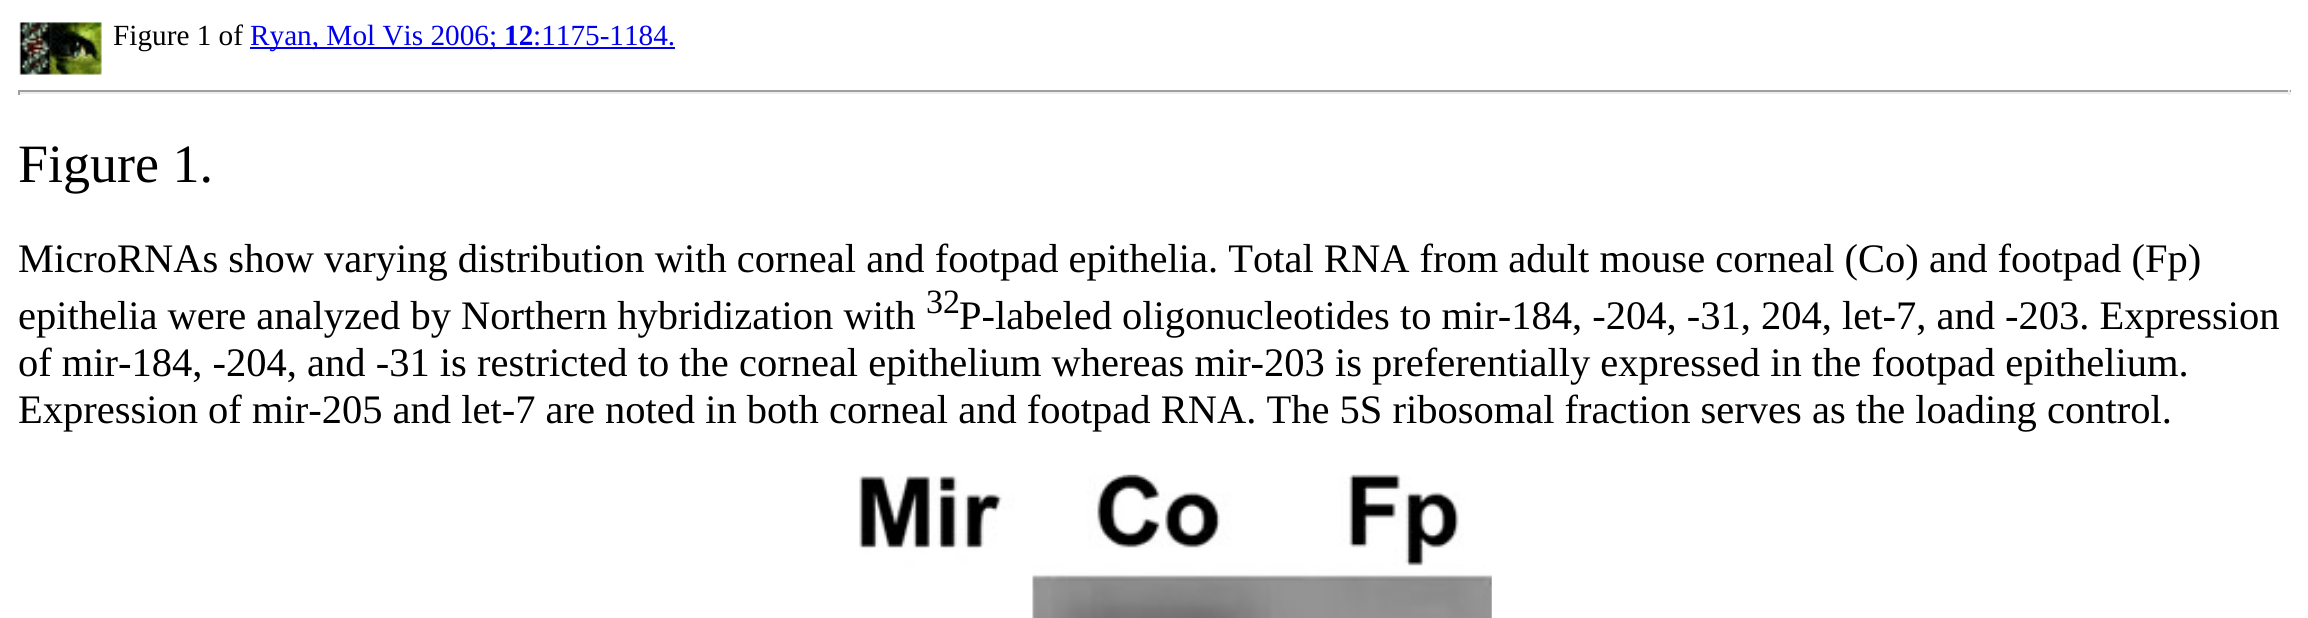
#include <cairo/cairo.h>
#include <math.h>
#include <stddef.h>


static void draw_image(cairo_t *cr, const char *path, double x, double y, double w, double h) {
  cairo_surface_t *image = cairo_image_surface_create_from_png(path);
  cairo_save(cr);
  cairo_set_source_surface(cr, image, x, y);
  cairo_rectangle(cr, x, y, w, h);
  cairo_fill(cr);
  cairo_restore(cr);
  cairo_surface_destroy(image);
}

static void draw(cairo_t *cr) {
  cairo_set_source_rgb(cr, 1, 1, 1);
  cairo_paint(cr);
  draw_image(cr, "images/1.png", 19, 22, 83, 53);
  cairo_set_source_rgb(cr, 0, 0, 238 / 255.0);
  cairo_rectangle(cr, 250, 47, 425, 2);
  cairo_fill(cr);
  cairo_set_source_rgb(cr, 159 / 255.0, 159 / 255.0, 159 / 255.0);
  cairo_rectangle(cr, 18, 90, 2273, 2);
  cairo_fill(cr);
  cairo_set_source_rgb(cr, 238 / 255.0, 238 / 255.0, 238 / 255.0);
  cairo_rectangle(cr, 2288, 90, 2, 5);
  cairo_fill(cr);
  cairo_rectangle(cr, 18, 92, 2273, 2);
  cairo_fill(cr);
  cairo_set_source_rgb(cr, 159 / 255.0, 159 / 255.0, 159 / 255.0);
  cairo_rectangle(cr, 18, 90, 2, 5);
  cairo_fill(cr);
  draw_image(cr, "images/2.png", 859, 474, 633, 144);
  cairo_select_font_face(cr, "Liberation Serif", CAIRO_FONT_SLANT_NORMAL, CAIRO_FONT_WEIGHT_NORMAL);
  cairo_set_font_size(cr, 29.25);
  cairo_set_source_rgb(cr, 0, 0, 0);
  cairo_move_to(cr, 113, 45);
  cairo_show_text(cr, "Figure 1 of");
  cairo_set_source_rgb(cr, 0, 0, 238 / 255.0);
  cairo_move_to(cr, 250, 45);
  cairo_show_text(cr, "Ryan, Mol Vis 2006;");
  cairo_select_font_face(cr, "Liberation Serif", CAIRO_FONT_SLANT_NORMAL, CAIRO_FONT_WEIGHT_BOLD);
  cairo_move_to(cr, 504, 45);
  cairo_show_text(cr, "12");
  cairo_select_font_face(cr, "Liberation Serif", CAIRO_FONT_SLANT_NORMAL, CAIRO_FONT_WEIGHT_NORMAL);
  cairo_move_to(cr, 533, 45);
  cairo_show_text(cr, ":1175-1184.");
  cairo_set_font_size(cr, 54);
  cairo_set_source_rgb(cr, 0, 0, 0);
  cairo_move_to(cr, 18, 182);
  cairo_show_text(cr, "Figure 1.");
  cairo_set_font_size(cr, 40.5);
  cairo_move_to(cr, 18, 272);
  cairo_show_text(cr, "MicroRNAs show varying distribution with corneal and footpad epithelia. Total RNA from adult mouse corneal (Co) and footpad (Fp)");
  cairo_move_to(cr, 18, 329);
  cairo_show_text(cr, "epithelia were analyzed by Northern hybridization with");
  cairo_set_font_size(cr, 34);
  cairo_move_to(cr, 926, 313);
  cairo_show_text(cr, "32");
  cairo_set_font_size(cr, 40.5);
  cairo_move_to(cr, 959, 329);
  cairo_show_text(cr, "P-labeled oligonucleotides to mir-184, -204, -31, 204, let-7, and -203. Expression");
  cairo_move_to(cr, 18, 376);
  cairo_show_text(cr, "of mir-184, -204, and -31 is restricted to the corneal epithelium whereas mir-203 is preferentially expressed in the footpad epithelium.");
  cairo_move_to(cr, 18, 423);
  cairo_show_text(cr, "Expression of mir-205 and let-7 are noted in both corneal and footpad RNA. The 5S ribosomal fraction serves as the loading control.");
}

int main(void) {
  cairo_surface_t *surface = cairo_image_surface_create(CAIRO_FORMAT_RGB24, 2308, 618);
  cairo_t *cr = cairo_create(surface);
  cairo_font_options_t *options = cairo_font_options_create();
  cairo_font_options_set_hint_metrics(options, CAIRO_HINT_METRICS_OFF);
  cairo_font_options_set_hint_style(options, CAIRO_HINT_STYLE_NONE);
  cairo_set_font_options(cr, options);
  cairo_set_miter_limit(cr, 4);
  draw(cr);
  cairo_surface_write_to_png(surface, "out.png");
  cairo_font_options_destroy(options);
  cairo_destroy(cr);
  cairo_surface_destroy(surface);
  return 0;
}
